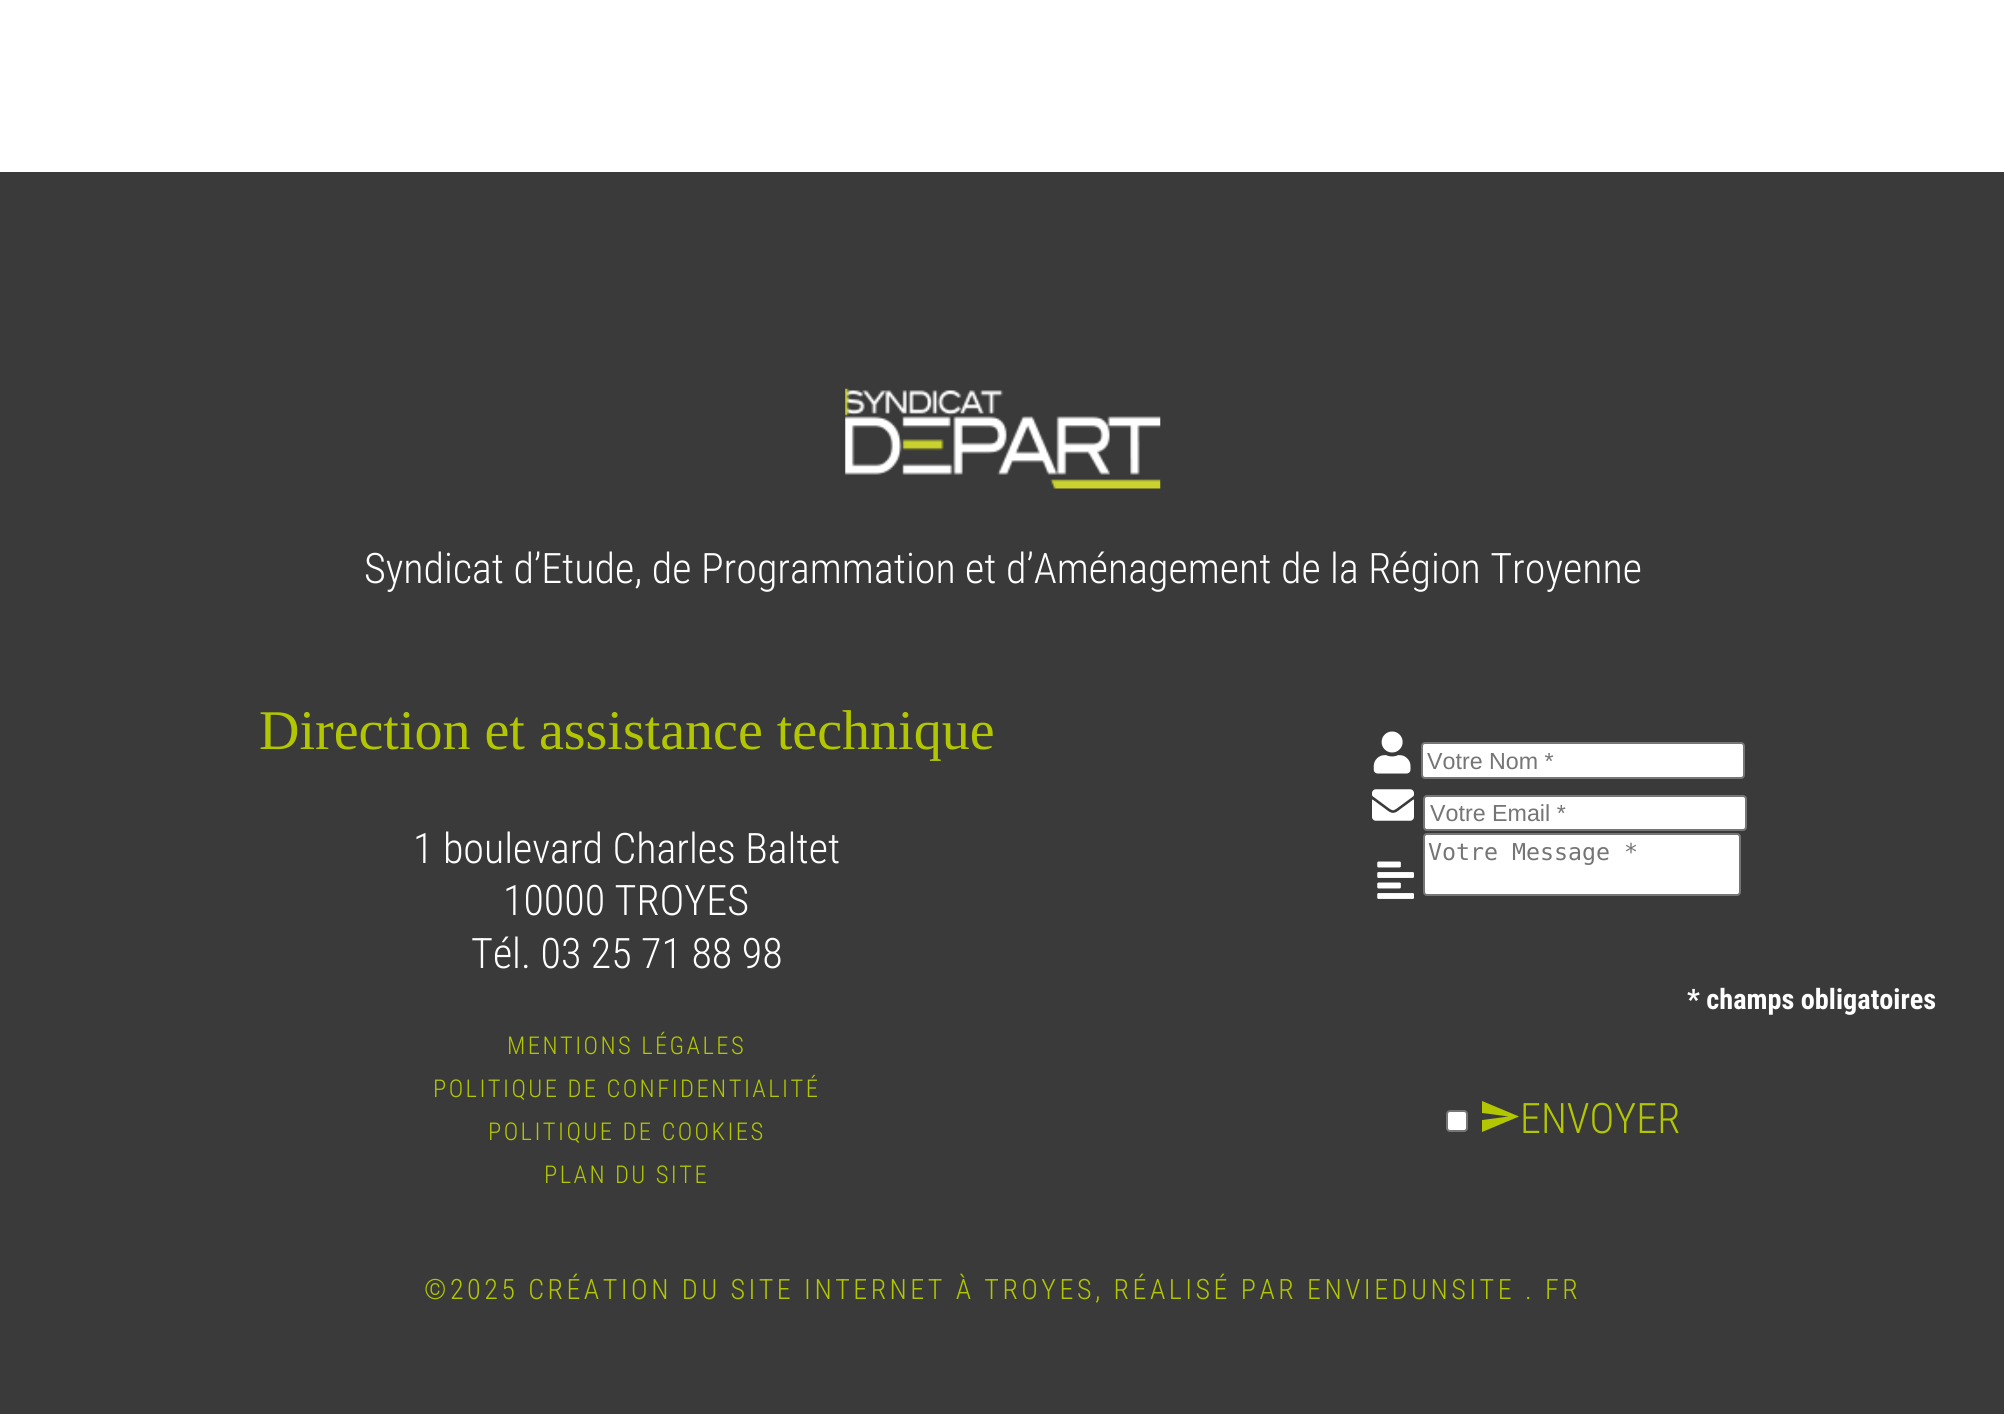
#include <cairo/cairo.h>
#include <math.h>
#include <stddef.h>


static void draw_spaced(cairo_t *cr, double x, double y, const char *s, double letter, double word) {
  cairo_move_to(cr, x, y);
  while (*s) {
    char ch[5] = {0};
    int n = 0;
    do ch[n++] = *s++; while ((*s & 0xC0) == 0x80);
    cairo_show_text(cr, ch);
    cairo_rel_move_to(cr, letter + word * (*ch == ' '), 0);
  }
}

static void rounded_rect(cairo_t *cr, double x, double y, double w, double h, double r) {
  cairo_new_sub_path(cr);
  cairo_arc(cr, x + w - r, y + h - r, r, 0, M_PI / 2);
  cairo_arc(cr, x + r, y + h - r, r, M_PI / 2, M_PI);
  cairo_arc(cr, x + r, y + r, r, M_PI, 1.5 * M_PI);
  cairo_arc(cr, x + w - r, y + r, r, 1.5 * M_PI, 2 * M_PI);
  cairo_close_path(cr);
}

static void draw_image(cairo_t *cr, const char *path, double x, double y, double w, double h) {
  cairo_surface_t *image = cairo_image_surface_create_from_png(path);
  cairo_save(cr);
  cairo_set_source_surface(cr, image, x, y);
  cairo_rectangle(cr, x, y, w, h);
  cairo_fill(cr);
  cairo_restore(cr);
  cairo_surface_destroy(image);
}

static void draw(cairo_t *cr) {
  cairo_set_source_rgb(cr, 1, 1, 1);
  cairo_paint(cr);
  cairo_set_source_rgb(cr, 58 / 255.0, 58 / 255.0, 58 / 255.0);
  cairo_rectangle(cr, 0, 172, 2004, 1242);
  cairo_fill(cr);
  draw_image(cr, "images/1.png", 845, 388, 316, 101);
  draw_image(cr, "images/2.png", 1373, 731, 38, 43);
  cairo_set_source_rgb(cr, 1, 1, 1);
  rounded_rect(cr, 1422, 743, 322, 35, 3);
  cairo_fill_preserve(cr);
  cairo_set_source_rgb(cr, 118 / 255.0, 118 / 255.0, 118 / 255.0);
  cairo_stroke(cr);
  draw_image(cr, "images/3.png", 1372, 789, 42, 32);
  cairo_set_source_rgb(cr, 1, 1, 1);
  rounded_rect(cr, 1424, 796, 322, 34, 3);
  cairo_fill_preserve(cr);
  cairo_set_source_rgb(cr, 118 / 255.0, 118 / 255.0, 118 / 255.0);
  cairo_stroke(cr);
  cairo_set_source_rgb(cr, 1, 1, 1);
  rounded_rect(cr, 1424, 834, 316, 61, 3);
  cairo_fill_preserve(cr);
  cairo_set_source_rgb(cr, 118 / 255.0, 118 / 255.0, 118 / 255.0);
  cairo_stroke(cr);
  draw_image(cr, "images/4.png", 1377, 861, 37, 38);
  cairo_set_source_rgb(cr, 1, 1, 1);
  rounded_rect(cr, 1447, 1111, 20, 20, 3);
  cairo_fill_preserve(cr);
  cairo_set_source_rgb(cr, 118 / 255.0, 118 / 255.0, 118 / 255.0);
  cairo_stroke(cr);
  cairo_set_source_rgb(cr, 178 / 255.0, 199 / 255.0, 0);
  cairo_new_path(cr);
  cairo_move_to(cr, 1482, 1132);
  cairo_line_to(cr, 1482, 1120);
  cairo_line_to(cr, 1508.5, 1116.5);
  cairo_line_to(cr, 1482, 1113);
  cairo_line_to(cr, 1482, 1101);
  cairo_line_to(cr, 1519, 1116.5);
  cairo_close_path(cr);
  cairo_fill(cr);
  cairo_select_font_face(cr, "Roboto Condensed Light", CAIRO_FONT_SLANT_NORMAL, CAIRO_FONT_WEIGHT_NORMAL);
  cairo_set_font_size(cr, 42);
  cairo_set_source_rgb(cr, 1, 1, 1);
  cairo_move_to(cr, 364, 583);
  cairo_show_text(cr, "Syndicat d’Etude, de Programmation et d’Aménagement de la Région Troyenne");
  cairo_select_font_face(cr, "Liberation Serif", CAIRO_FONT_SLANT_NORMAL, CAIRO_FONT_WEIGHT_NORMAL);
  cairo_set_font_size(cr, 56);
  cairo_set_source_rgb(cr, 178 / 255.0, 199 / 255.0, 0);
  cairo_move_to(cr, 259, 749);
  cairo_show_text(cr, "Direction et assistance technique");
  cairo_select_font_face(cr, "Roboto Condensed Light", CAIRO_FONT_SLANT_NORMAL, CAIRO_FONT_WEIGHT_NORMAL);
  cairo_set_font_size(cr, 42);
  cairo_set_source_rgb(cr, 1, 1, 1);
  cairo_move_to(cr, 413, 863);
  cairo_show_text(cr, "1 boulevard Charles Baltet");
  cairo_move_to(cr, 503, 915);
  cairo_show_text(cr, "10000 TROYES");
  cairo_move_to(cr, 471, 968);
  cairo_show_text(cr, "Tél. 03 25 71 88 98");
  cairo_set_font_size(cr, 24.5);
  cairo_set_source_rgb(cr, 178 / 255.0, 199 / 255.0, 0);
  draw_spaced(cr, 507, 1054, "MENTIONS LÉGALES", 2.45, 0);
  draw_spaced(cr, 433, 1097, "POLITIQUE DE CONFIDENTIALITÉ", 2.45, 0);
  draw_spaced(cr, 488, 1140, "POLITIQUE DE COOKIES", 2.45, 0);
  draw_spaced(cr, 544, 1183, "PLAN DU SITE", 2.45, 0);
  cairo_select_font_face(cr, "Liberation Sans", CAIRO_FONT_SLANT_NORMAL, CAIRO_FONT_WEIGHT_NORMAL);
  cairo_set_font_size(cr, 23.25);
  cairo_set_source_rgb(cr, 117 / 255.0, 117 / 255.0, 117 / 255.0);
  cairo_move_to(cr, 1427, 769);
  cairo_show_text(cr, "Votre Nom *");
  cairo_move_to(cr, 1430, 821);
  cairo_show_text(cr, "Votre Email *");
  cairo_select_font_face(cr, "DejaVu Sans Mono", CAIRO_FONT_SLANT_NORMAL, CAIRO_FONT_WEIGHT_NORMAL);
  cairo_move_to(cr, 1428, 860);
  cairo_show_text(cr, "Votre Message *");
  cairo_select_font_face(cr, "Roboto Condensed", CAIRO_FONT_SLANT_NORMAL, CAIRO_FONT_WEIGHT_BOLD);
  cairo_set_font_size(cr, 28.25);
  cairo_set_source_rgb(cr, 1, 1, 1);
  cairo_move_to(cr, 1687, 1009);
  cairo_show_text(cr, "* champs obligatoires");
  cairo_select_font_face(cr, "Roboto Condensed Light", CAIRO_FONT_SLANT_NORMAL, CAIRO_FONT_WEIGHT_NORMAL);
  cairo_set_font_size(cr, 42);
  cairo_set_source_rgb(cr, 178 / 255.0, 199 / 255.0, 0);
  cairo_move_to(cr, 1520, 1133);
  cairo_show_text(cr, "ENVOYER");
  cairo_set_font_size(cr, 28);
  draw_spaced(cr, 424, 1299, "©2025 CRÉATION DU SITE INTERNET À TROYES, RÉALISÉ PAR ENVIEDUNSITE . FR", 3.5, 0);
}

int main(void) {
  cairo_surface_t *surface = cairo_image_surface_create(CAIRO_FORMAT_RGB24, 2004, 1414);
  cairo_t *cr = cairo_create(surface);
  cairo_font_options_t *options = cairo_font_options_create();
  cairo_font_options_set_hint_metrics(options, CAIRO_HINT_METRICS_OFF);
  cairo_font_options_set_hint_style(options, CAIRO_HINT_STYLE_NONE);
  cairo_set_font_options(cr, options);
  cairo_set_miter_limit(cr, 4);
  draw(cr);
  cairo_surface_write_to_png(surface, "out.png");
  cairo_font_options_destroy(options);
  cairo_destroy(cr);
  cairo_surface_destroy(surface);
  return 0;
}
